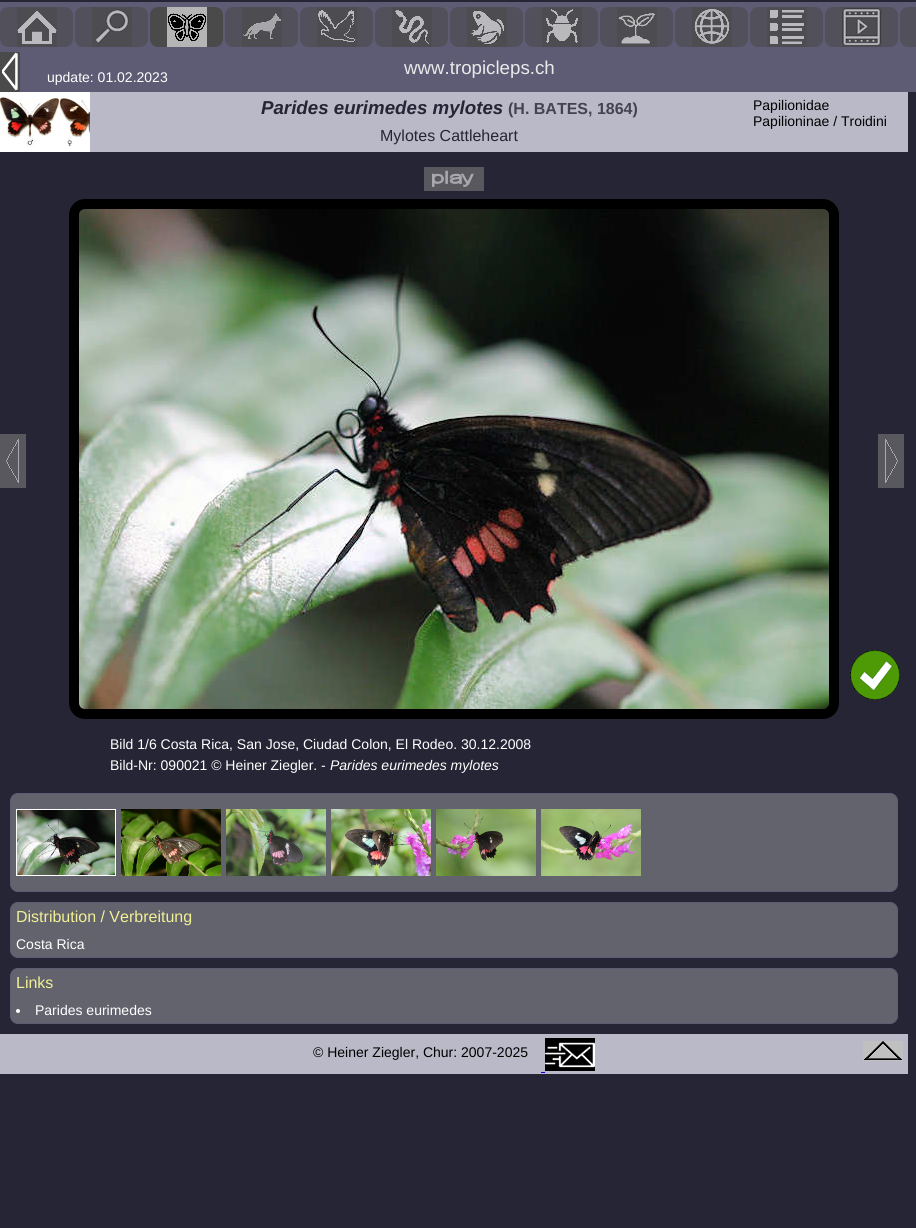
#include <cairo/cairo.h>
#include <math.h>
#include <stddef.h>


static void rounded_rect(cairo_t *cr, double x, double y, double w, double h, double r) {
  cairo_new_sub_path(cr);
  cairo_arc(cr, x + w - r, y + h - r, r, 0, M_PI / 2);
  cairo_arc(cr, x + r, y + h - r, r, M_PI / 2, M_PI);
  cairo_arc(cr, x + r, y + r, r, M_PI, 1.5 * M_PI);
  cairo_arc(cr, x + w - r, y + r, r, 1.5 * M_PI, 2 * M_PI);
  cairo_close_path(cr);
}

static void draw_image(cairo_t *cr, const char *path, double x, double y, double w, double h) {
  cairo_surface_t *image = cairo_image_surface_create_from_png(path);
  cairo_save(cr);
  cairo_set_source_surface(cr, image, x, y);
  cairo_rectangle(cr, x, y, w, h);
  cairo_fill(cr);
  cairo_restore(cr);
  cairo_surface_destroy(image);
}

static void draw(cairo_t *cr) {
  cairo_set_source_rgb(cr, 38 / 255.0, 37 / 255.0, 53 / 255.0);
  cairo_paint(cr);
  cairo_set_source_rgb(cr, 93 / 255.0, 92 / 255.0, 116 / 255.0);
  cairo_rectangle(cr, 0, 2, 916, 50);
  cairo_fill(cr);
  cairo_set_source_rgb(cr, 82 / 255.0, 81 / 255.0, 91 / 255.0);
  rounded_rect(cr, 0, 7, 73, 40, 8);
  cairo_fill(cr);
  draw_image(cr, "images/1.png", 17, 7, 40, 40);
  rounded_rect(cr, 75, 7, 73, 40, 8);
  cairo_fill(cr);
  draw_image(cr, "images/2.png", 92, 7, 40, 40);
  cairo_set_source_rgb(cr, 74 / 255.0, 74 / 255.0, 74 / 255.0);
  rounded_rect(cr, 150, 7, 73, 40, 8);
  cairo_fill(cr);
  draw_image(cr, "images/3.png", 167, 7, 40, 40);
  cairo_set_source_rgb(cr, 82 / 255.0, 81 / 255.0, 91 / 255.0);
  rounded_rect(cr, 225, 7, 73, 40, 8);
  cairo_fill(cr);
  draw_image(cr, "images/4.png", 242, 7, 40, 40);
  rounded_rect(cr, 300, 7, 73, 40, 8);
  cairo_fill(cr);
  draw_image(cr, "images/5.png", 317, 7, 40, 40);
  rounded_rect(cr, 375, 7, 73, 40, 8);
  cairo_fill(cr);
  draw_image(cr, "images/6.png", 392, 7, 40, 40);
  rounded_rect(cr, 450, 7, 73, 40, 8);
  cairo_fill(cr);
  draw_image(cr, "images/7.png", 467, 7, 40, 40);
  rounded_rect(cr, 525, 7, 73, 40, 8);
  cairo_fill(cr);
  draw_image(cr, "images/8.png", 542, 7, 40, 40);
  rounded_rect(cr, 600, 7, 73, 40, 8);
  cairo_fill(cr);
  draw_image(cr, "images/9.png", 617, 7, 40, 40);
  rounded_rect(cr, 675, 7, 73, 40, 8);
  cairo_fill(cr);
  draw_image(cr, "images/10.png", 692, 7, 40, 40);
  rounded_rect(cr, 750, 7, 73, 40, 8);
  cairo_fill(cr);
  draw_image(cr, "images/11.png", 767, 7, 40, 40);
  rounded_rect(cr, 825, 7, 73, 40, 8);
  cairo_fill(cr);
  draw_image(cr, "images/12.png", 842, 7, 40, 40);
  rounded_rect(cr, 900, 7, 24, 40, 8);
  cairo_fill(cr);
  cairo_set_source_rgb(cr, 93 / 255.0, 92 / 255.0, 116 / 255.0);
  cairo_rectangle(cr, 20, 52, 896, 40);
  cairo_fill(cr);
  draw_image(cr, "images/13.png", 0, 52, 20, 40);
  cairo_set_source_rgb(cr, 186 / 255.0, 185 / 255.0, 199 / 255.0);
  cairo_rectangle(cr, 90, 92, 818, 60);
  cairo_fill(cr);
  draw_image(cr, "images/14.png", 0, 92, 90, 60);
  draw_image(cr, "images/15.png", 424, 167, 60, 24);
  draw_image(cr, "images/16.png", 0, 434, 26, 54);
  rounded_rect(cr, 74, 204, 760, 510, 11);
  cairo_set_source_rgb(cr, 0, 0, 0);
  cairo_set_line_width(cr, 10);
  cairo_stroke(cr);
  draw_image(cr, "images/17.png", 79, 209, 750, 500);
  draw_image(cr, "images/18.png", 878, 434, 26, 54);
  draw_image(cr, "images/19.png", 850, 650, 50, 50);
  cairo_set_source_rgb(cr, 99 / 255.0, 99 / 255.0, 109 / 255.0);
  rounded_rect(cr, 10.5, 793.5, 887, 98, 7.5);
  cairo_fill_preserve(cr);
  cairo_set_source_rgb(cr, 93 / 255.0, 92 / 255.0, 116 / 255.0);
  cairo_set_line_width(cr, 1);
  cairo_stroke(cr);
  cairo_rectangle(cr, 16.5, 809.5, 99, 66);
  cairo_set_source_rgb(cr, 1, 1, 1);
  cairo_stroke(cr);
  draw_image(cr, "images/20.png", 17, 810, 98, 65);
  draw_image(cr, "images/21.png", 121, 809, 100, 67);
  draw_image(cr, "images/22.png", 226, 809, 100, 67);
  draw_image(cr, "images/23.png", 331, 809, 100, 67);
  draw_image(cr, "images/24.png", 436, 809, 100, 67);
  draw_image(cr, "images/25.png", 541, 809, 100, 67);
  cairo_set_source_rgb(cr, 99 / 255.0, 99 / 255.0, 109 / 255.0);
  rounded_rect(cr, 10.5, 902.5, 887, 55, 7.5);
  cairo_fill_preserve(cr);
  cairo_set_source_rgb(cr, 93 / 255.0, 92 / 255.0, 116 / 255.0);
  cairo_stroke(cr);
  cairo_set_source_rgb(cr, 99 / 255.0, 99 / 255.0, 109 / 255.0);
  rounded_rect(cr, 10.5, 968.5, 887, 55, 7.5);
  cairo_fill_preserve(cr);
  cairo_set_source_rgb(cr, 93 / 255.0, 92 / 255.0, 116 / 255.0);
  cairo_stroke(cr);
  cairo_set_source_rgb(cr, 1, 1, 1);
  cairo_arc(cr, 18, 1011, 2, 0, 2 * M_PI);
  cairo_fill(cr);
  cairo_set_source_rgb(cr, 186 / 255.0, 185 / 255.0, 199 / 255.0);
  cairo_rectangle(cr, 0, 1034, 908, 40);
  cairo_fill(cr);
  cairo_set_source_rgb(cr, 0, 0, 238 / 255.0);
  cairo_rectangle(cr, 541, 1072, 4, 1);
  cairo_fill(cr);
  draw_image(cr, "images/26.png", 545, 1038, 50, 33);
  draw_image(cr, "images/27.png", 863, 1041, 40, 20);
  cairo_select_font_face(cr, "Liberation Sans", CAIRO_FONT_SLANT_NORMAL, CAIRO_FONT_WEIGHT_NORMAL);
  cairo_set_font_size(cr, 14);
  cairo_set_source_rgb(cr, 1, 1, 1);
  cairo_move_to(cr, 47, 82);
  cairo_show_text(cr, "update: 01.02.2023");
  cairo_set_font_size(cr, 18.7);
  cairo_set_source_rgb(cr, 234 / 255.0, 234 / 255.0, 234 / 255.0);
  cairo_move_to(cr, 404, 74);
  cairo_show_text(cr, "www.tropicleps.ch");
  cairo_select_font_face(cr, "Liberation Sans", CAIRO_FONT_SLANT_ITALIC, CAIRO_FONT_WEIGHT_BOLD);
  cairo_set_source_rgb(cr, 38 / 255.0, 37 / 255.0, 53 / 255.0);
  cairo_move_to(cr, 261, 114);
  cairo_show_text(cr, "Parides eurimedes mylotes");
  cairo_select_font_face(cr, "Liberation Sans", CAIRO_FONT_SLANT_NORMAL, CAIRO_FONT_WEIGHT_BOLD);
  cairo_set_font_size(cr, 16);
  cairo_set_source_rgb(cr, 68 / 255.0, 67 / 255.0, 82 / 255.0);
  cairo_move_to(cr, 508, 114);
  cairo_show_text(cr, "(H. BATES, 1864)");
  cairo_select_font_face(cr, "Liberation Sans", CAIRO_FONT_SLANT_NORMAL, CAIRO_FONT_WEIGHT_NORMAL);
  cairo_set_font_size(cr, 14);
  cairo_set_source_rgb(cr, 0, 0, 0);
  cairo_move_to(cr, 753, 110);
  cairo_show_text(cr, "Papilionidae");
  cairo_move_to(cr, 753, 126);
  cairo_show_text(cr, "Papilioninae / Troidini");
  cairo_set_font_size(cr, 16);
  cairo_set_source_rgb(cr, 38 / 255.0, 37 / 255.0, 53 / 255.0);
  cairo_move_to(cr, 380, 141);
  cairo_show_text(cr, "Mylotes Cattleheart");
  cairo_set_font_size(cr, 14);
  cairo_set_source_rgb(cr, 1, 1, 1);
  cairo_move_to(cr, 110, 749);
  cairo_show_text(cr, "Bild 1/6 Costa Rica, San Jose, Ciudad Colon, El Rodeo. 30.12.2008");
  cairo_move_to(cr, 110, 770);
  cairo_show_text(cr, "Bild-Nr: 090021 © Heiner Ziegler. -");
  cairo_select_font_face(cr, "Liberation Sans", CAIRO_FONT_SLANT_ITALIC, CAIRO_FONT_WEIGHT_NORMAL);
  cairo_move_to(cr, 330, 770);
  cairo_show_text(cr, "Parides eurimedes mylotes");
  cairo_select_font_face(cr, "Liberation Sans", CAIRO_FONT_SLANT_NORMAL, CAIRO_FONT_WEIGHT_NORMAL);
  cairo_set_font_size(cr, 16);
  cairo_set_source_rgb(cr, 241 / 255.0, 240 / 255.0, 149 / 255.0);
  cairo_move_to(cr, 16, 922);
  cairo_show_text(cr, "Distribution / Verbreitung");
  cairo_set_font_size(cr, 14);
  cairo_set_source_rgb(cr, 1, 1, 1);
  cairo_move_to(cr, 16, 949);
  cairo_show_text(cr, "Costa Rica");
  cairo_set_font_size(cr, 16);
  cairo_set_source_rgb(cr, 241 / 255.0, 240 / 255.0, 149 / 255.0);
  cairo_move_to(cr, 16, 988);
  cairo_show_text(cr, "Links");
  cairo_set_font_size(cr, 14);
  cairo_set_source_rgb(cr, 1, 1, 1);
  cairo_move_to(cr, 35, 1015);
  cairo_show_text(cr, "Parides eurimedes");
  cairo_set_source_rgb(cr, 0, 0, 0);
  cairo_move_to(cr, 313, 1057);
  cairo_show_text(cr, "© Heiner Ziegler, Chur: 2007-2025");
}

int main(void) {
  cairo_surface_t *surface = cairo_image_surface_create(CAIRO_FORMAT_RGB24, 916, 1228);
  cairo_t *cr = cairo_create(surface);
  cairo_font_options_t *options = cairo_font_options_create();
  cairo_font_options_set_hint_metrics(options, CAIRO_HINT_METRICS_OFF);
  cairo_font_options_set_hint_style(options, CAIRO_HINT_STYLE_NONE);
  cairo_set_font_options(cr, options);
  cairo_set_miter_limit(cr, 4);
  draw(cr);
  cairo_surface_write_to_png(surface, "out.png");
  cairo_font_options_destroy(options);
  cairo_destroy(cr);
  cairo_surface_destroy(surface);
  return 0;
}
